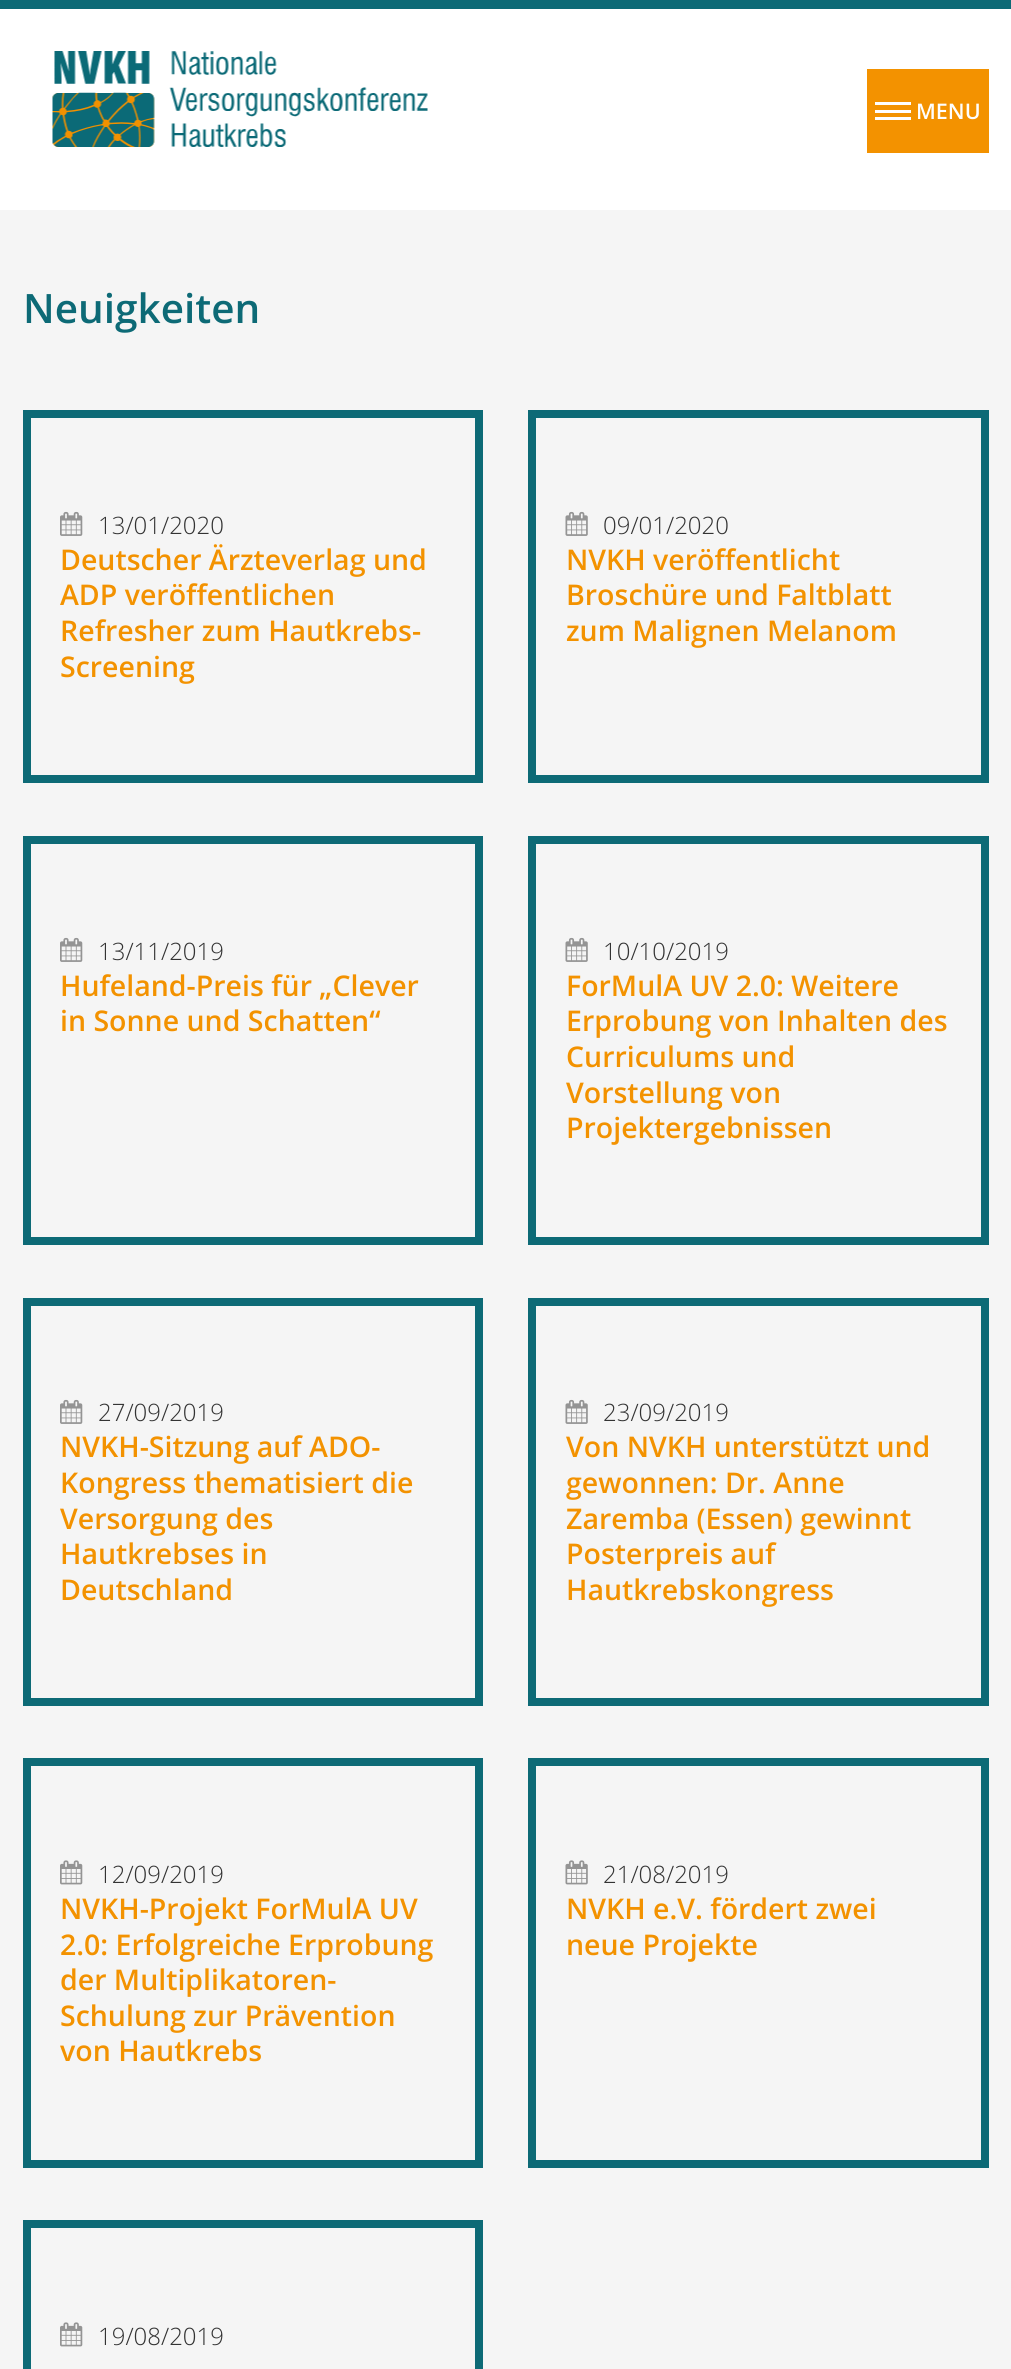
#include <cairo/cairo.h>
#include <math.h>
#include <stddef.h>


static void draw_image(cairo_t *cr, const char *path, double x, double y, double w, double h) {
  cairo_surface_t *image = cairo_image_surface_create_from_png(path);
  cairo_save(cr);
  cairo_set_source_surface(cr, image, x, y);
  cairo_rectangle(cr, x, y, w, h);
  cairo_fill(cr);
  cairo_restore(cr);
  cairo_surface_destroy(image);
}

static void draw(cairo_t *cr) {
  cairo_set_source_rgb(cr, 245 / 255.0, 245 / 255.0, 245 / 255.0);
  cairo_paint(cr);
  cairo_set_source_rgb(cr, 1, 1, 1);
  cairo_rectangle(cr, 0, 9, 1011, 201);
  cairo_fill(cr);
  cairo_set_source_rgb(cr, 13 / 255.0, 106 / 255.0, 118 / 255.0);
  cairo_rectangle(cr, 0, 0, 1011, 9);
  cairo_fill(cr);
  draw_image(cr, "images/1.png", 52, 51, 376, 96);
  cairo_set_source_rgb(cr, 243 / 255.0, 146 / 255.0, 0);
  cairo_rectangle(cr, 867, 69, 122, 84);
  cairo_fill(cr);
  cairo_set_source_rgb(cr, 254 / 255.0, 254 / 255.0, 254 / 255.0);
  cairo_rectangle(cr, 875, 117, 36, 3);
  cairo_fill(cr);
  cairo_rectangle(cr, 875, 110, 36, 3);
  cairo_fill(cr);
  cairo_rectangle(cr, 875, 102, 36, 3);
  cairo_fill(cr);
  cairo_rectangle(cr, 27, 414, 452, 365);
  cairo_set_source_rgb(cr, 13 / 255.0, 106 / 255.0, 118 / 255.0);
  cairo_set_line_width(cr, 8);
  cairo_stroke(cr);
  draw_image(cr, "images/2.png", 60, 511, 23, 25);
  cairo_rectangle(cr, 532, 414, 453, 365);
  cairo_stroke(cr);
  draw_image(cr, "images/3.png", 565, 511, 23, 25);
  cairo_rectangle(cr, 27, 840, 452, 401);
  cairo_stroke(cr);
  draw_image(cr, "images/2.png", 60, 937, 23, 25);
  cairo_rectangle(cr, 532, 840, 453, 401);
  cairo_stroke(cr);
  draw_image(cr, "images/3.png", 565, 937, 23, 25);
  cairo_rectangle(cr, 27, 1302, 452, 400);
  cairo_stroke(cr);
  draw_image(cr, "images/2.png", 60, 1399, 23, 25);
  cairo_rectangle(cr, 532, 1302, 453, 400);
  cairo_stroke(cr);
  draw_image(cr, "images/3.png", 565, 1399, 23, 25);
  cairo_rectangle(cr, 27, 1762, 452, 402);
  cairo_stroke(cr);
  draw_image(cr, "images/4.png", 60, 1860, 23, 25);
  cairo_rectangle(cr, 532, 1762, 453, 402);
  cairo_stroke(cr);
  draw_image(cr, "images/5.png", 565, 1860, 23, 25);
  cairo_rectangle(cr, 27, 2224, 452, 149);
  cairo_stroke(cr);
  draw_image(cr, "images/4.png", 60, 2322, 23, 25);
  cairo_select_font_face(cr, "Open Sans SemiBold", CAIRO_FONT_SLANT_NORMAL, CAIRO_FONT_WEIGHT_NORMAL);
  cairo_set_font_size(cr, 21.5);
  cairo_set_source_rgb(cr, 254 / 255.0, 254 / 255.0, 254 / 255.0);
  cairo_move_to(cr, 916, 119);
  cairo_show_text(cr, "MENU");
  cairo_set_font_size(cr, 40.5);
  cairo_set_source_rgb(cr, 13 / 255.0, 106 / 255.0, 118 / 255.0);
  cairo_move_to(cr, 23, 323);
  cairo_show_text(cr, "Neuigkeiten");
  cairo_select_font_face(cr, "Open Sans Light", CAIRO_FONT_SLANT_NORMAL, CAIRO_FONT_WEIGHT_NORMAL);
  cairo_set_font_size(cr, 24);
  cairo_set_source_rgb(cr, 51 / 255.0, 51 / 255.0, 51 / 255.0);
  cairo_move_to(cr, 98, 534);
  cairo_show_text(cr, "13/01/2020");
  cairo_select_font_face(cr, "Open Sans SemiBold", CAIRO_FONT_SLANT_NORMAL, CAIRO_FONT_WEIGHT_NORMAL);
  cairo_set_font_size(cr, 28.5);
  cairo_set_source_rgb(cr, 243 / 255.0, 146 / 255.0, 0);
  cairo_move_to(cr, 60, 570);
  cairo_show_text(cr, "Deutscher Ärzteverlag und");
  cairo_move_to(cr, 60, 605);
  cairo_show_text(cr, "ADP veröffentlichen");
  cairo_move_to(cr, 60, 641);
  cairo_show_text(cr, "Refresher zum Hautkrebs-");
  cairo_move_to(cr, 60, 677);
  cairo_show_text(cr, "Screening");
  cairo_select_font_face(cr, "Open Sans Light", CAIRO_FONT_SLANT_NORMAL, CAIRO_FONT_WEIGHT_NORMAL);
  cairo_set_font_size(cr, 24);
  cairo_set_source_rgb(cr, 51 / 255.0, 51 / 255.0, 51 / 255.0);
  cairo_move_to(cr, 603, 534);
  cairo_show_text(cr, "09/01/2020");
  cairo_select_font_face(cr, "Open Sans SemiBold", CAIRO_FONT_SLANT_NORMAL, CAIRO_FONT_WEIGHT_NORMAL);
  cairo_set_font_size(cr, 28.5);
  cairo_set_source_rgb(cr, 243 / 255.0, 146 / 255.0, 0);
  cairo_move_to(cr, 566, 570);
  cairo_show_text(cr, "NVKH veröffentlicht");
  cairo_move_to(cr, 566, 605);
  cairo_show_text(cr, "Broschüre und Faltblatt");
  cairo_move_to(cr, 566, 641);
  cairo_show_text(cr, "zum Malignen Melanom");
  cairo_select_font_face(cr, "Open Sans Light", CAIRO_FONT_SLANT_NORMAL, CAIRO_FONT_WEIGHT_NORMAL);
  cairo_set_font_size(cr, 24);
  cairo_set_source_rgb(cr, 51 / 255.0, 51 / 255.0, 51 / 255.0);
  cairo_move_to(cr, 98, 960);
  cairo_show_text(cr, "13/11/2019");
  cairo_select_font_face(cr, "Open Sans SemiBold", CAIRO_FONT_SLANT_NORMAL, CAIRO_FONT_WEIGHT_NORMAL);
  cairo_set_font_size(cr, 28.5);
  cairo_set_source_rgb(cr, 243 / 255.0, 146 / 255.0, 0);
  cairo_move_to(cr, 60, 996);
  cairo_show_text(cr, "Hufeland-Preis für „Clever");
  cairo_move_to(cr, 60, 1031);
  cairo_show_text(cr, "in Sonne und Schatten“");
  cairo_select_font_face(cr, "Open Sans Light", CAIRO_FONT_SLANT_NORMAL, CAIRO_FONT_WEIGHT_NORMAL);
  cairo_set_font_size(cr, 24);
  cairo_set_source_rgb(cr, 51 / 255.0, 51 / 255.0, 51 / 255.0);
  cairo_move_to(cr, 603, 960);
  cairo_show_text(cr, "10/10/2019");
  cairo_select_font_face(cr, "Open Sans SemiBold", CAIRO_FONT_SLANT_NORMAL, CAIRO_FONT_WEIGHT_NORMAL);
  cairo_set_font_size(cr, 28.5);
  cairo_set_source_rgb(cr, 243 / 255.0, 146 / 255.0, 0);
  cairo_move_to(cr, 566, 996);
  cairo_show_text(cr, "ForMulA UV 2.0: Weitere");
  cairo_move_to(cr, 566, 1031);
  cairo_show_text(cr, "Erprobung von Inhalten des");
  cairo_move_to(cr, 566, 1067);
  cairo_show_text(cr, "Curriculums und");
  cairo_move_to(cr, 566, 1103);
  cairo_show_text(cr, "Vorstellung von");
  cairo_move_to(cr, 566, 1138);
  cairo_show_text(cr, "Projektergebnissen");
  cairo_select_font_face(cr, "Open Sans Light", CAIRO_FONT_SLANT_NORMAL, CAIRO_FONT_WEIGHT_NORMAL);
  cairo_set_font_size(cr, 24);
  cairo_set_source_rgb(cr, 51 / 255.0, 51 / 255.0, 51 / 255.0);
  cairo_move_to(cr, 98, 1421);
  cairo_show_text(cr, "27/09/2019");
  cairo_select_font_face(cr, "Open Sans SemiBold", CAIRO_FONT_SLANT_NORMAL, CAIRO_FONT_WEIGHT_NORMAL);
  cairo_set_font_size(cr, 28.5);
  cairo_set_source_rgb(cr, 243 / 255.0, 146 / 255.0, 0);
  cairo_move_to(cr, 60, 1457);
  cairo_show_text(cr, "NVKH-Sitzung auf ADO-");
  cairo_move_to(cr, 60, 1493);
  cairo_show_text(cr, "Kongress thematisiert die");
  cairo_move_to(cr, 60, 1529);
  cairo_show_text(cr, "Versorgung des");
  cairo_move_to(cr, 60, 1564);
  cairo_show_text(cr, "Hautkrebses in");
  cairo_move_to(cr, 60, 1600);
  cairo_show_text(cr, "Deutschland");
  cairo_select_font_face(cr, "Open Sans Light", CAIRO_FONT_SLANT_NORMAL, CAIRO_FONT_WEIGHT_NORMAL);
  cairo_set_font_size(cr, 24);
  cairo_set_source_rgb(cr, 51 / 255.0, 51 / 255.0, 51 / 255.0);
  cairo_move_to(cr, 603, 1421);
  cairo_show_text(cr, "23/09/2019");
  cairo_select_font_face(cr, "Open Sans SemiBold", CAIRO_FONT_SLANT_NORMAL, CAIRO_FONT_WEIGHT_NORMAL);
  cairo_set_font_size(cr, 28.5);
  cairo_set_source_rgb(cr, 243 / 255.0, 146 / 255.0, 0);
  cairo_move_to(cr, 566, 1457);
  cairo_show_text(cr, "Von NVKH unterstützt und");
  cairo_move_to(cr, 566, 1493);
  cairo_show_text(cr, "gewonnen: Dr. Anne");
  cairo_move_to(cr, 566, 1529);
  cairo_show_text(cr, "Zaremba (Essen) gewinnt");
  cairo_move_to(cr, 566, 1564);
  cairo_show_text(cr, "Posterpreis auf");
  cairo_move_to(cr, 566, 1600);
  cairo_show_text(cr, "Hautkrebskongress");
  cairo_select_font_face(cr, "Open Sans Light", CAIRO_FONT_SLANT_NORMAL, CAIRO_FONT_WEIGHT_NORMAL);
  cairo_set_font_size(cr, 24);
  cairo_set_source_rgb(cr, 51 / 255.0, 51 / 255.0, 51 / 255.0);
  cairo_move_to(cr, 98, 1883);
  cairo_show_text(cr, "12/09/2019");
  cairo_select_font_face(cr, "Open Sans SemiBold", CAIRO_FONT_SLANT_NORMAL, CAIRO_FONT_WEIGHT_NORMAL);
  cairo_set_font_size(cr, 28.5);
  cairo_set_source_rgb(cr, 243 / 255.0, 146 / 255.0, 0);
  cairo_move_to(cr, 60, 1919);
  cairo_show_text(cr, "NVKH-Projekt ForMulA UV");
  cairo_move_to(cr, 60, 1955);
  cairo_show_text(cr, "2.0: Erfolgreiche Erprobung");
  cairo_move_to(cr, 60, 1990);
  cairo_show_text(cr, "der Multiplikatoren-");
  cairo_move_to(cr, 60, 2026);
  cairo_show_text(cr, "Schulung zur Prävention");
  cairo_move_to(cr, 60, 2061);
  cairo_show_text(cr, "von Hautkrebs");
  cairo_select_font_face(cr, "Open Sans Light", CAIRO_FONT_SLANT_NORMAL, CAIRO_FONT_WEIGHT_NORMAL);
  cairo_set_font_size(cr, 24);
  cairo_set_source_rgb(cr, 51 / 255.0, 51 / 255.0, 51 / 255.0);
  cairo_move_to(cr, 603, 1883);
  cairo_show_text(cr, "21/08/2019");
  cairo_select_font_face(cr, "Open Sans SemiBold", CAIRO_FONT_SLANT_NORMAL, CAIRO_FONT_WEIGHT_NORMAL);
  cairo_set_font_size(cr, 28.5);
  cairo_set_source_rgb(cr, 243 / 255.0, 146 / 255.0, 0);
  cairo_move_to(cr, 566, 1919);
  cairo_show_text(cr, "NVKH e.V. fördert zwei");
  cairo_move_to(cr, 566, 1955);
  cairo_show_text(cr, "neue Projekte");
  cairo_select_font_face(cr, "Open Sans Light", CAIRO_FONT_SLANT_NORMAL, CAIRO_FONT_WEIGHT_NORMAL);
  cairo_set_font_size(cr, 24);
  cairo_set_source_rgb(cr, 51 / 255.0, 51 / 255.0, 51 / 255.0);
  cairo_move_to(cr, 98, 2345);
  cairo_show_text(cr, "19/08/2019");
}

int main(void) {
  cairo_surface_t *surface = cairo_image_surface_create(CAIRO_FORMAT_RGB24, 1011, 2369);
  cairo_t *cr = cairo_create(surface);
  cairo_font_options_t *options = cairo_font_options_create();
  cairo_font_options_set_hint_metrics(options, CAIRO_HINT_METRICS_OFF);
  cairo_font_options_set_hint_style(options, CAIRO_HINT_STYLE_NONE);
  cairo_set_font_options(cr, options);
  cairo_set_miter_limit(cr, 4);
  draw(cr);
  cairo_surface_write_to_png(surface, "out.png");
  cairo_font_options_destroy(options);
  cairo_destroy(cr);
  cairo_surface_destroy(surface);
  return 0;
}
